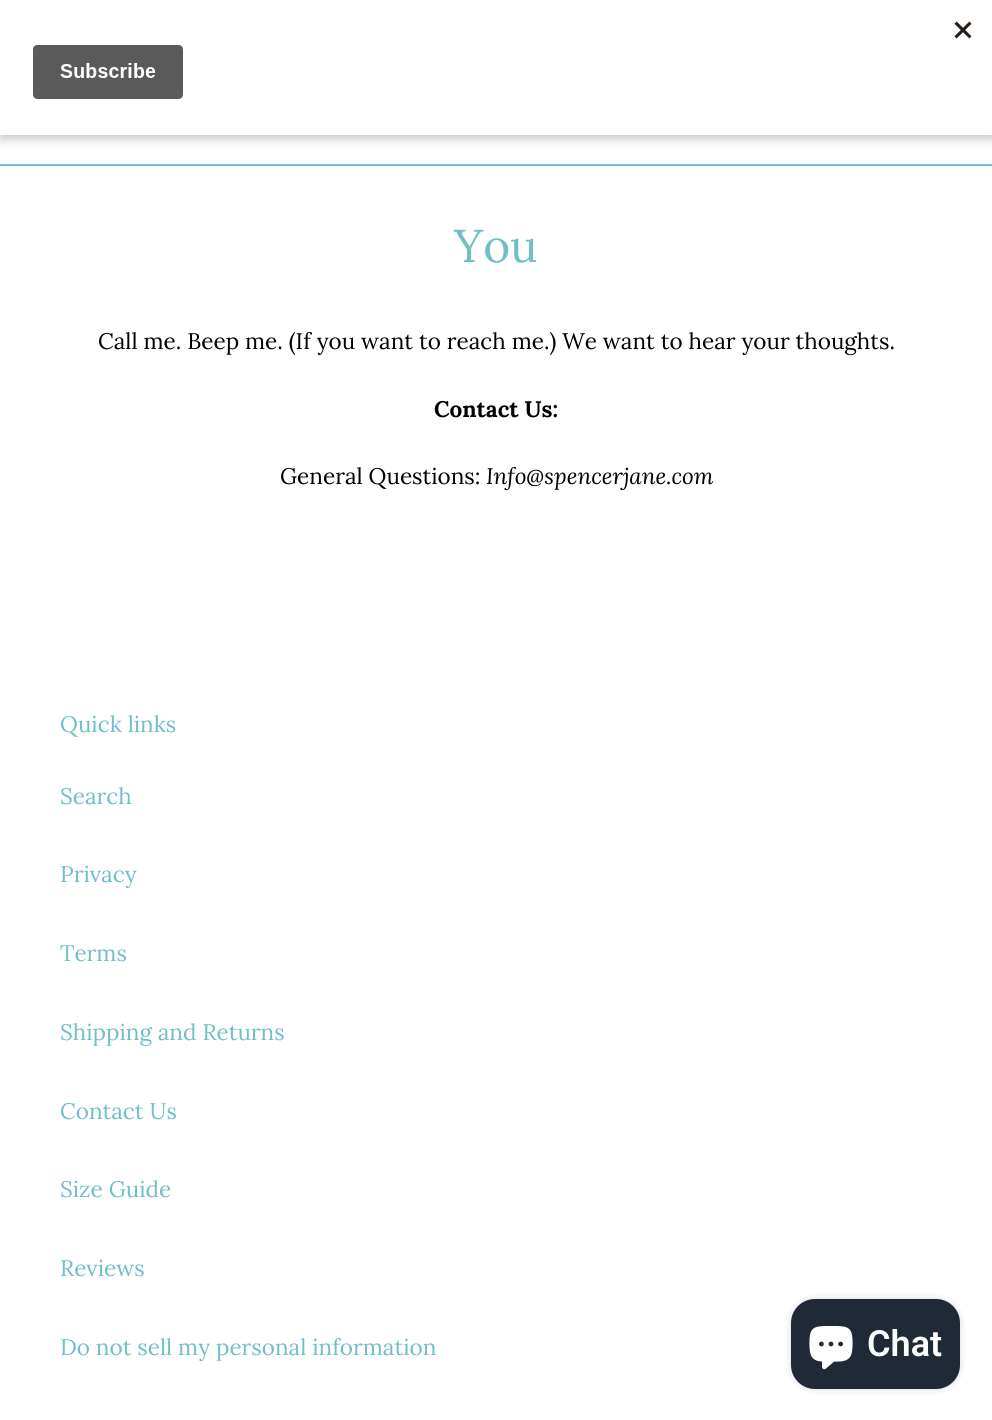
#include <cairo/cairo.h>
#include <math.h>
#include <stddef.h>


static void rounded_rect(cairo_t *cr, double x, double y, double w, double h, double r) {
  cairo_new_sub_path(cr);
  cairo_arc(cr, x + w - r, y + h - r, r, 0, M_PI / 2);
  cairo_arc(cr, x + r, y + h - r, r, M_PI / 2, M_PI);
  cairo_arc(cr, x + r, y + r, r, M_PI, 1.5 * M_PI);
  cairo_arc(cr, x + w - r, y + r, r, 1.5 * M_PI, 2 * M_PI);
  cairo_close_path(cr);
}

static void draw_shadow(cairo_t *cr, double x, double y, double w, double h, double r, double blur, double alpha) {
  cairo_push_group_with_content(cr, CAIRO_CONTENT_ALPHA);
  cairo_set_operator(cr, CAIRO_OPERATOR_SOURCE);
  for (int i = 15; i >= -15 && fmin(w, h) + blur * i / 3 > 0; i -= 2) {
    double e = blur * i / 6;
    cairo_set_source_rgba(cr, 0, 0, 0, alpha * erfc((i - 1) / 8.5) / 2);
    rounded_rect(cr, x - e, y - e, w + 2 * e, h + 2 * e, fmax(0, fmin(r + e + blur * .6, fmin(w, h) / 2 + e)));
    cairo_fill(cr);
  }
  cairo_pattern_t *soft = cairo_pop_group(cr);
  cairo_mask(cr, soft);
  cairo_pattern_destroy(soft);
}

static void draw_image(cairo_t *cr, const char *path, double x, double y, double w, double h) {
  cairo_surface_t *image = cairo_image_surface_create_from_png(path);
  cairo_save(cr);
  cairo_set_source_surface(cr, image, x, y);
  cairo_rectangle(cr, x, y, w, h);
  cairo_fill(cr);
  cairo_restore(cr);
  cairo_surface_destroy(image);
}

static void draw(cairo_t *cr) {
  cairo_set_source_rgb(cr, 1, 1, 1);
  cairo_paint(cr);
  cairo_set_source_rgb(cr, 0, 0, 0);
  draw_shadow(cr, 0, 5, 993, 135, 0, 4.5, 0.2);
  cairo_set_source_rgb(cr, 1, 1, 1);
  cairo_rectangle(cr, 0, 0, 992, 135);
  cairo_fill(cr);
  draw_image(cr, "images/1.png", 32, 21, 940, 78);
  cairo_set_source_rgb(cr, 112 / 255.0, 190 / 255.0, 201 / 255.0);
  cairo_rectangle(cr, 0, 164, 992, 2);
  cairo_fill(cr);
  cairo_set_source_rgb(cr, 0, 0, 0);
  draw_shadow(cr, 791, 1299, 169, 90, 24, 4, 0.15);
  cairo_set_source_rgb(cr, 32 / 255.0, 42 / 255.0, 54 / 255.0);
  rounded_rect(cr, 791, 1299, 169, 90, 24);
  cairo_fill(cr);
  draw_image(cr, "images/2.png", 809, 1326, 44, 44);
  cairo_select_font_face(cr, "Lora", CAIRO_FONT_SLANT_NORMAL, CAIRO_FONT_WEIGHT_NORMAL);
  cairo_set_font_size(cr, 46);
  cairo_set_source_rgb(cr, 112 / 255.0, 190 / 255.0, 201 / 255.0);
  cairo_move_to(cr, 454, 262);
  cairo_show_text(cr, "You");
  cairo_set_font_size(cr, 22.5);
  cairo_set_source_rgb(cr, 0, 0, 0);
  cairo_move_to(cr, 98, 349);
  cairo_show_text(cr, "Call me. Beep me. (If you want to reach me.) We want to hear your thoughts.");
  cairo_select_font_face(cr, "Lora", CAIRO_FONT_SLANT_NORMAL, CAIRO_FONT_WEIGHT_BOLD);
  cairo_move_to(cr, 434, 417);
  cairo_show_text(cr, "Contact Us:");
  cairo_select_font_face(cr, "Lora", CAIRO_FONT_SLANT_NORMAL, CAIRO_FONT_WEIGHT_NORMAL);
  cairo_move_to(cr, 280, 484);
  cairo_show_text(cr, "General Questions:");
  cairo_select_font_face(cr, "Lora", CAIRO_FONT_SLANT_ITALIC, CAIRO_FONT_WEIGHT_NORMAL);
  cairo_move_to(cr, 486, 484);
  cairo_show_text(cr, "Info@spencerjane.com");
  cairo_select_font_face(cr, "Lora", CAIRO_FONT_SLANT_NORMAL, CAIRO_FONT_WEIGHT_NORMAL);
  cairo_set_source_rgb(cr, 112 / 255.0, 190 / 255.0, 201 / 255.0);
  cairo_move_to(cr, 60, 732);
  cairo_show_text(cr, "Quick links");
  cairo_move_to(cr, 60, 804);
  cairo_show_text(cr, "Search");
  cairo_move_to(cr, 60, 882);
  cairo_show_text(cr, "Privacy");
  cairo_move_to(cr, 60, 961);
  cairo_show_text(cr, "Terms");
  cairo_move_to(cr, 60, 1040);
  cairo_show_text(cr, "Shipping and Returns");
  cairo_move_to(cr, 60, 1119);
  cairo_show_text(cr, "Contact Us");
  cairo_move_to(cr, 60, 1197);
  cairo_show_text(cr, "Size Guide");
  cairo_move_to(cr, 60, 1276);
  cairo_show_text(cr, "Reviews");
  cairo_move_to(cr, 60, 1355);
  cairo_show_text(cr, "Do not sell my personal information");
  cairo_select_font_face(cr, "Roboto SemiBold", CAIRO_FONT_SLANT_NORMAL, CAIRO_FONT_WEIGHT_NORMAL);
  cairo_set_font_size(cr, 36);
  cairo_set_source_rgb(cr, 1, 1, 1);
  cairo_move_to(cr, 867, 1356);
  cairo_show_text(cr, "Chat");
}

int main(void) {
  cairo_surface_t *surface = cairo_image_surface_create(CAIRO_FORMAT_RGB24, 992, 1420);
  cairo_t *cr = cairo_create(surface);
  cairo_font_options_t *options = cairo_font_options_create();
  cairo_font_options_set_hint_metrics(options, CAIRO_HINT_METRICS_OFF);
  cairo_font_options_set_hint_style(options, CAIRO_HINT_STYLE_NONE);
  cairo_set_font_options(cr, options);
  cairo_set_miter_limit(cr, 4);
  draw(cr);
  cairo_surface_write_to_png(surface, "out.png");
  cairo_font_options_destroy(options);
  cairo_destroy(cr);
  cairo_surface_destroy(surface);
  return 0;
}
